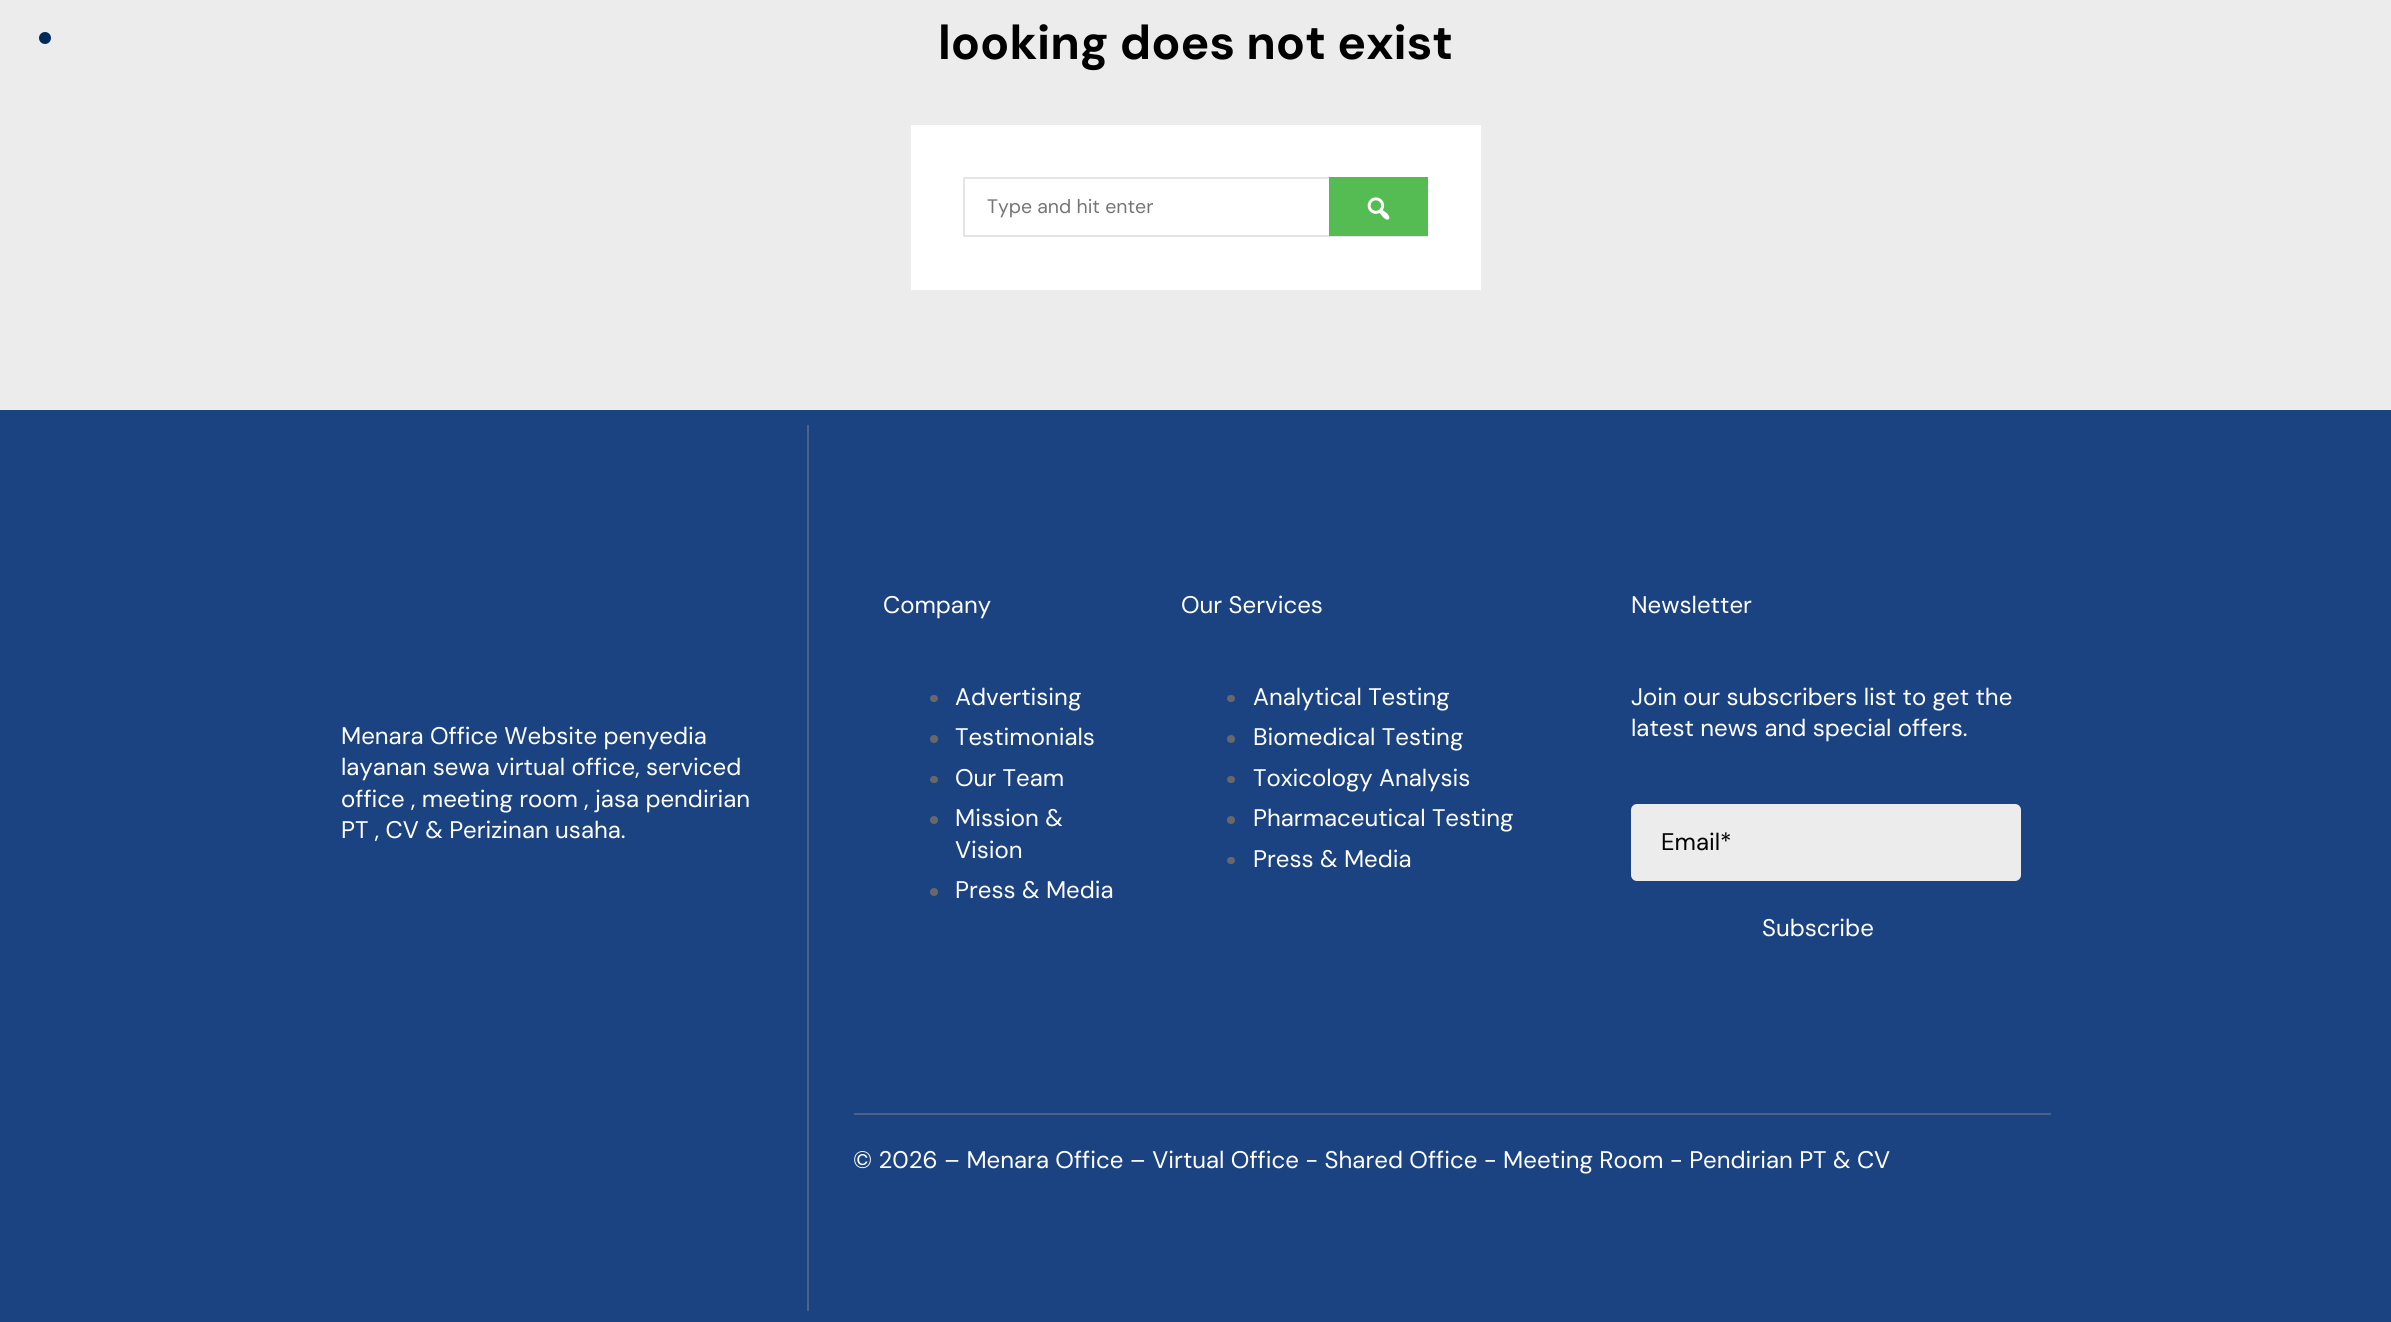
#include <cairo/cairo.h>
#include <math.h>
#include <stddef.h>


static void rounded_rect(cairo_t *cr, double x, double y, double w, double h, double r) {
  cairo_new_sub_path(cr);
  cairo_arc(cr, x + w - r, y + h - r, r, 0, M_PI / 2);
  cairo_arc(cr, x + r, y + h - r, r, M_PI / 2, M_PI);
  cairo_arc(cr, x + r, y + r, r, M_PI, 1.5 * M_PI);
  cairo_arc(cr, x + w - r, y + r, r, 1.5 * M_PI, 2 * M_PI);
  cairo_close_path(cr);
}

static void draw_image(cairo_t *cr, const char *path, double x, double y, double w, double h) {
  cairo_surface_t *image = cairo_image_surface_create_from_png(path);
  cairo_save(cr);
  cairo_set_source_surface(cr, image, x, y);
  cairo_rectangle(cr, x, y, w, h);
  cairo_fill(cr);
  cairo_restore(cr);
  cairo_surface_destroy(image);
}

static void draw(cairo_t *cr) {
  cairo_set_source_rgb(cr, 236 / 255.0, 236 / 255.0, 236 / 255.0);
  cairo_paint(cr);
  cairo_set_source_rgb(cr, 0, 42 / 255.0, 92 / 255.0);
  cairo_arc(cr, 45, 38, 6, 0, 2 * M_PI);
  cairo_fill(cr);
  cairo_set_source_rgb(cr, 1, 1, 1);
  cairo_rectangle(cr, 911, 125, 570, 165);
  cairo_fill(cr);
  cairo_rectangle(cr, 964, 178, 463, 58);
  cairo_set_source_rgb(cr, 229 / 255.0, 229 / 255.0, 229 / 255.0);
  cairo_stroke(cr);
  cairo_set_source_rgb(cr, 85 / 255.0, 187 / 255.0, 83 / 255.0);
  cairo_rectangle(cr, 1329, 177, 99, 59);
  cairo_fill(cr);
  draw_image(cr, "images/1.png", 1367, 197, 23, 23);
  cairo_set_source_rgb(cr, 28 / 255.0, 67 / 255.0, 129 / 255.0);
  cairo_rectangle(cr, 0, 410, 2391, 912);
  cairo_fill(cr);
  cairo_set_source_rgb(cr, 77 / 255.0, 98 / 255.0, 130 / 255.0);
  cairo_rectangle(cr, 807, 425, 2, 886);
  cairo_fill(cr);
  cairo_set_source_rgb(cr, 105 / 255.0, 104 / 255.0, 104 / 255.0);
  rounded_rect(cr, 930, 695, 8, 7, 3.5);
  cairo_fill(cr);
  cairo_arc(cr, 934, 739, 4, 0, 2 * M_PI);
  cairo_fill(cr);
  rounded_rect(cr, 930, 776, 8, 7, 3.5);
  cairo_fill(cr);
  cairo_arc(cr, 934, 820, 4, 0, 2 * M_PI);
  cairo_fill(cr);
  cairo_arc(cr, 934, 892, 4, 0, 2 * M_PI);
  cairo_fill(cr);
  rounded_rect(cr, 1227, 695, 8, 7, 3.5);
  cairo_fill(cr);
  cairo_arc(cr, 1231, 739, 4, 0, 2 * M_PI);
  cairo_fill(cr);
  rounded_rect(cr, 1227, 776, 8, 7, 3.5);
  cairo_fill(cr);
  cairo_arc(cr, 1231, 820, 4, 0, 2 * M_PI);
  cairo_fill(cr);
  rounded_rect(cr, 1227, 857, 8, 7, 3.5);
  cairo_fill(cr);
  cairo_set_source_rgb(cr, 236 / 255.0, 236 / 255.0, 236 / 255.0);
  rounded_rect(cr, 1631, 804, 390, 77, 6);
  cairo_fill(cr);
  cairo_set_source_rgb(cr, 77 / 255.0, 98 / 255.0, 130 / 255.0);
  cairo_rectangle(cr, 854, 1113, 1197, 2);
  cairo_fill(cr);
  cairo_select_font_face(cr, "DM Sans", CAIRO_FONT_SLANT_NORMAL, CAIRO_FONT_WEIGHT_BOLD);
  cairo_set_font_size(cr, 48);
  cairo_set_source_rgb(cr, 0, 0, 0);
  cairo_move_to(cr, 938, 59);
  cairo_show_text(cr, "looking does not exist");
  cairo_select_font_face(cr, "DM Sans", CAIRO_FONT_SLANT_NORMAL, CAIRO_FONT_WEIGHT_NORMAL);
  cairo_set_font_size(cr, 19.5);
  cairo_set_source_rgb(cr, 117 / 255.0, 117 / 255.0, 117 / 255.0);
  cairo_move_to(cr, 987, 213);
  cairo_show_text(cr, "Type and hit enter");
  cairo_set_font_size(cr, 24);
  cairo_set_source_rgb(cr, 1, 1, 1);
  cairo_move_to(cr, 341, 744);
  cairo_show_text(cr, "Menara Office Website penyedia");
  cairo_move_to(cr, 341, 775);
  cairo_show_text(cr, "layanan sewa virtual office, serviced");
  cairo_move_to(cr, 341, 807);
  cairo_show_text(cr, "office , meeting room , jasa pendirian");
  cairo_move_to(cr, 341, 838);
  cairo_show_text(cr, "PT , CV & Perizinan usaha.");
  cairo_move_to(cr, 883, 613);
  cairo_show_text(cr, "Company");
  cairo_move_to(cr, 955, 705);
  cairo_show_text(cr, "Advertising");
  cairo_move_to(cr, 955, 745);
  cairo_show_text(cr, "Testimonials");
  cairo_move_to(cr, 955, 786);
  cairo_show_text(cr, "Our Team");
  cairo_move_to(cr, 955, 826);
  cairo_show_text(cr, "Mission &");
  cairo_move_to(cr, 955, 858);
  cairo_show_text(cr, "Vision");
  cairo_move_to(cr, 955, 898);
  cairo_show_text(cr, "Press & Media");
  cairo_move_to(cr, 1181, 613);
  cairo_show_text(cr, "Our Services");
  cairo_move_to(cr, 1253, 705);
  cairo_show_text(cr, "Analytical Testing");
  cairo_move_to(cr, 1253, 745);
  cairo_show_text(cr, "Biomedical Testing");
  cairo_move_to(cr, 1253, 786);
  cairo_show_text(cr, "Toxicology Analysis");
  cairo_move_to(cr, 1253, 826);
  cairo_show_text(cr, "Pharmaceutical Testing");
  cairo_move_to(cr, 1253, 867);
  cairo_show_text(cr, "Press & Media");
  cairo_move_to(cr, 1631, 613);
  cairo_show_text(cr, "Newsletter");
  cairo_move_to(cr, 1631, 705);
  cairo_show_text(cr, "Join our subscribers list to get the");
  cairo_move_to(cr, 1631, 736);
  cairo_show_text(cr, "latest news and special offers.");
  cairo_set_source_rgb(cr, 0, 0, 0);
  cairo_move_to(cr, 1661, 850);
  cairo_show_text(cr, "Email*");
  cairo_set_source_rgb(cr, 1, 1, 1);
  cairo_move_to(cr, 1762, 936);
  cairo_show_text(cr, "Subscribe");
  cairo_move_to(cr, 853, 1168);
  cairo_show_text(cr, "© 2026 – Menara Office – Virtual Office - Shared Office - Meeting Room - Pendirian PT & CV");
}

int main(void) {
  cairo_surface_t *surface = cairo_image_surface_create(CAIRO_FORMAT_RGB24, 2391, 1322);
  cairo_t *cr = cairo_create(surface);
  cairo_font_options_t *options = cairo_font_options_create();
  cairo_font_options_set_hint_metrics(options, CAIRO_HINT_METRICS_OFF);
  cairo_font_options_set_hint_style(options, CAIRO_HINT_STYLE_NONE);
  cairo_set_font_options(cr, options);
  cairo_set_miter_limit(cr, 4);
  draw(cr);
  cairo_surface_write_to_png(surface, "out.png");
  cairo_font_options_destroy(options);
  cairo_destroy(cr);
  cairo_surface_destroy(surface);
  return 0;
}
